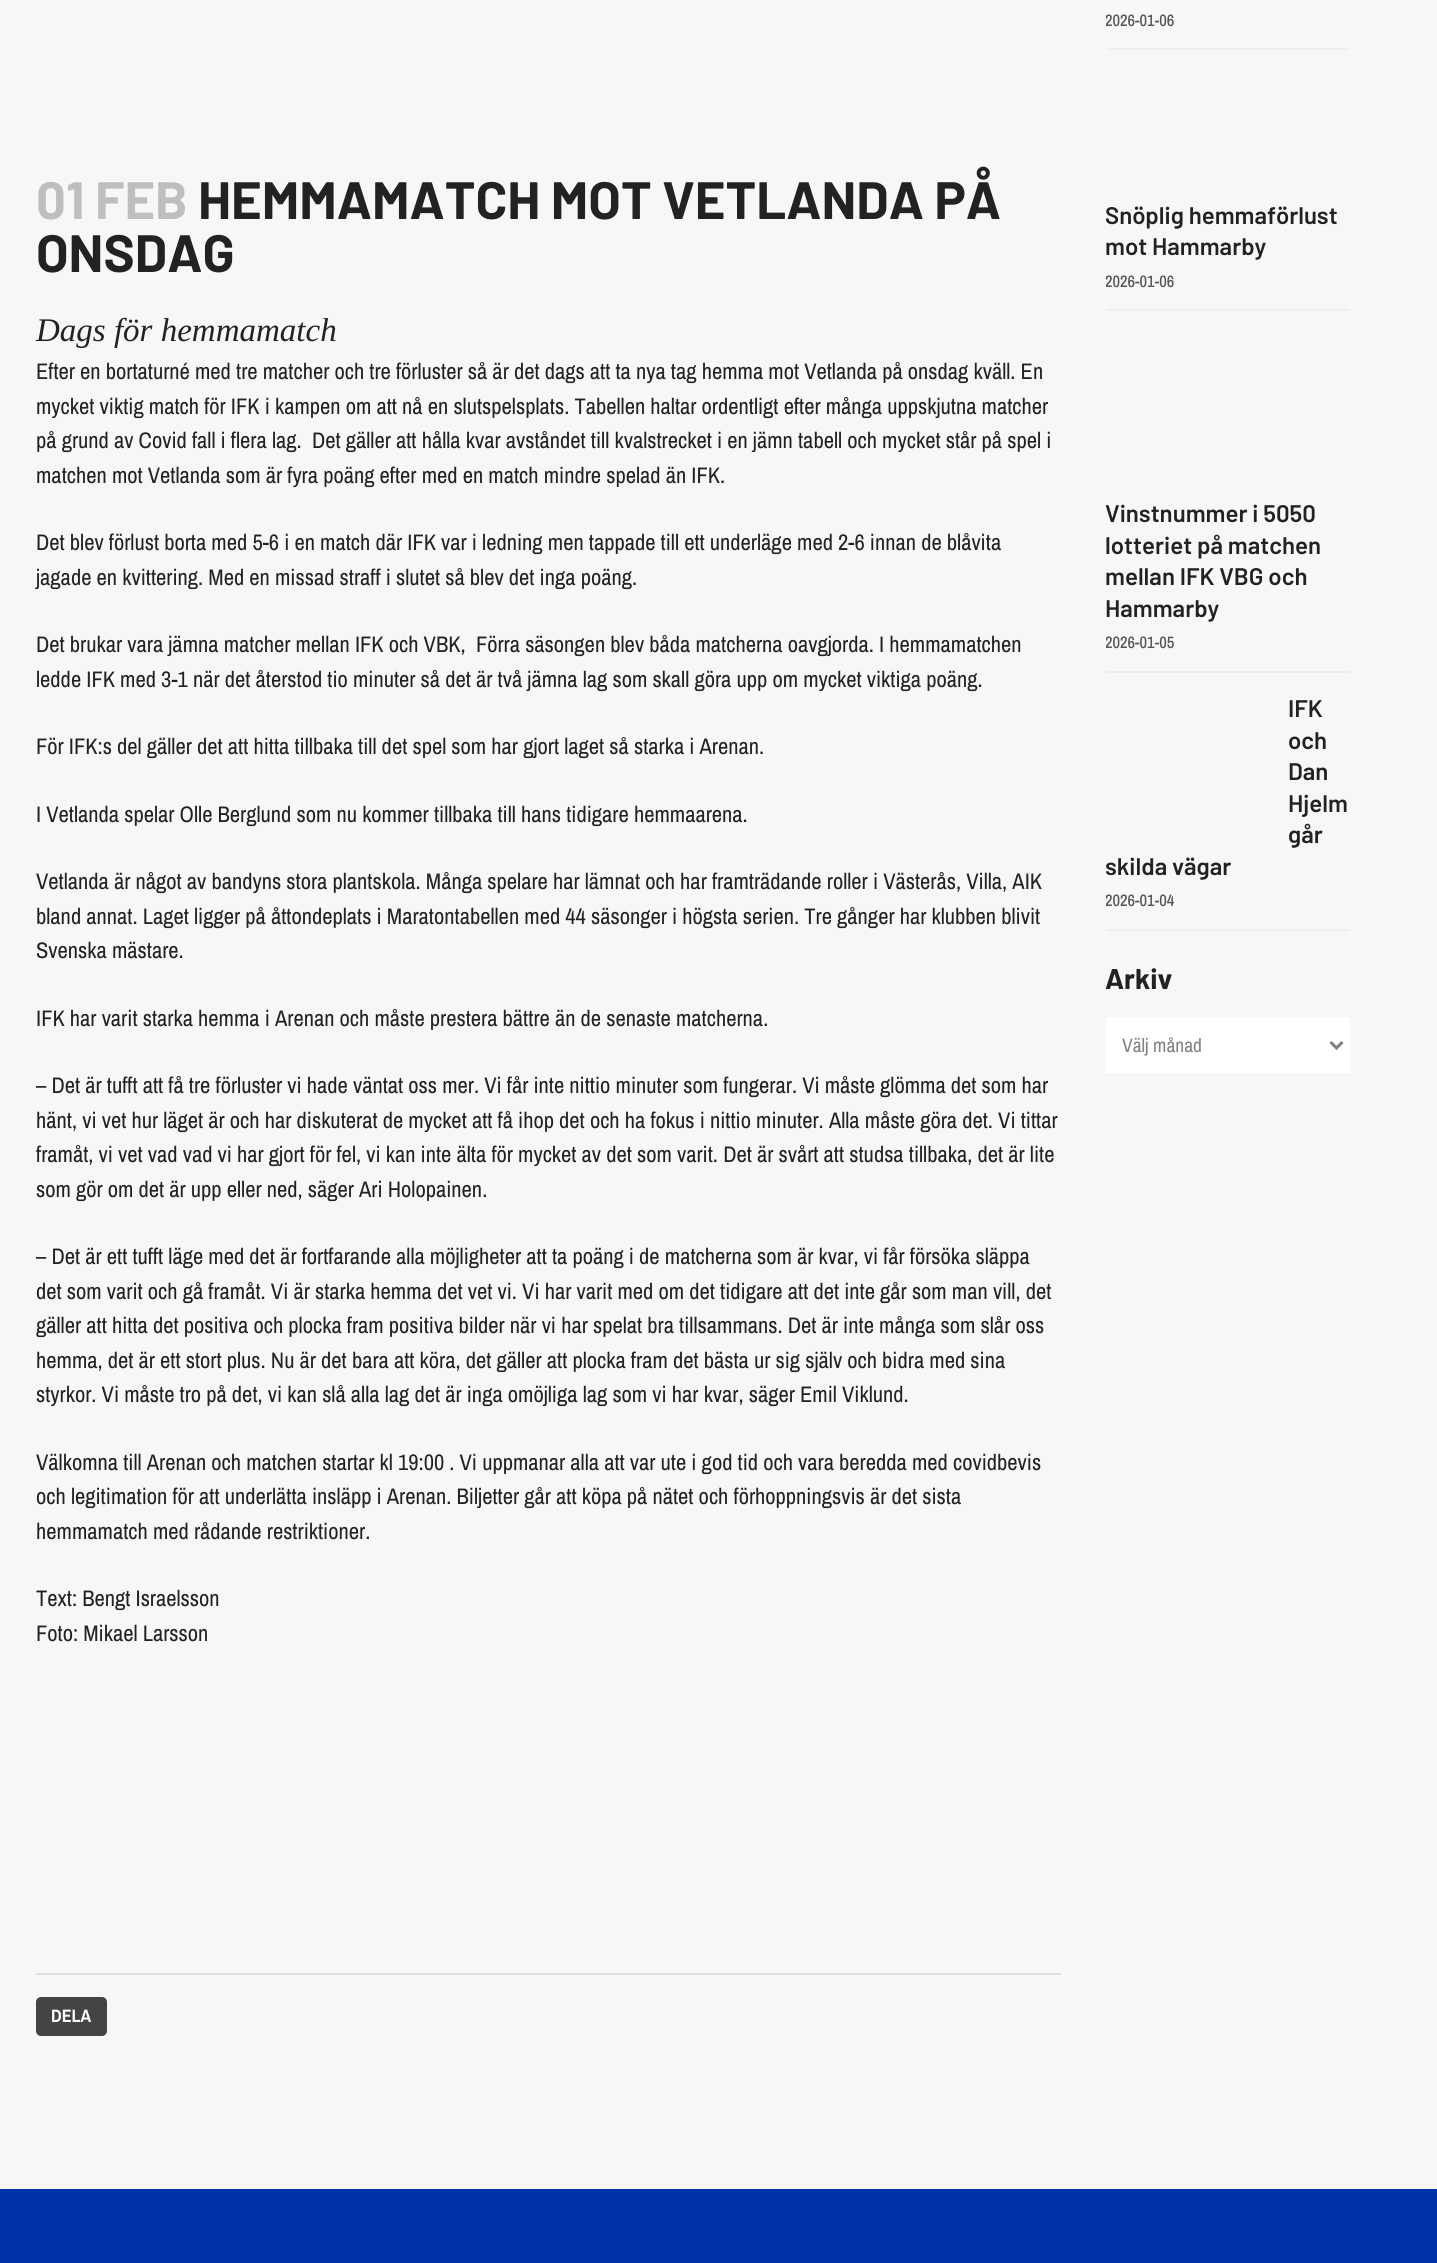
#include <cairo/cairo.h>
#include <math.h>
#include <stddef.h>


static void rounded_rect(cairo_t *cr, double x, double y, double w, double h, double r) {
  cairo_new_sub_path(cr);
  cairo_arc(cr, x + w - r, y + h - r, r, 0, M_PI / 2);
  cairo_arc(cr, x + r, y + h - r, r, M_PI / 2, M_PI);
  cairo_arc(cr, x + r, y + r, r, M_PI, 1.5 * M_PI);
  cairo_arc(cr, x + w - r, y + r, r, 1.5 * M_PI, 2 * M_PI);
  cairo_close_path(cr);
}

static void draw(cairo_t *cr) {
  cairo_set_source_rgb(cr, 247 / 255.0, 247 / 255.0, 247 / 255.0);
  cairo_paint(cr);
  cairo_set_source_rgb(cr, 224 / 255.0, 224 / 255.0, 224 / 255.0);
  cairo_rectangle(cr, 36, 1973, 1025, 2);
  cairo_fill(cr);
  cairo_set_source_rgb(cr, 68 / 255.0, 68 / 255.0, 68 / 255.0);
  rounded_rect(cr, 36, 1997, 71, 39, 5);
  cairo_fill(cr);
  cairo_set_source_rgb(cr, 238 / 255.0, 238 / 255.0, 238 / 255.0);
  cairo_rectangle(cr, 1106, 48, 244, 2);
  cairo_fill(cr);
  cairo_rectangle(cr, 1106, 309, 244, 2);
  cairo_fill(cr);
  cairo_rectangle(cr, 1106, 671, 244, 2);
  cairo_fill(cr);
  cairo_rectangle(cr, 1106, 929, 244, 2);
  cairo_fill(cr);
  cairo_set_source_rgb(cr, 1, 1, 1);
  cairo_rectangle(cr, 1106, 1017, 244, 56);
  cairo_fill(cr);
  cairo_new_path(cr);
  cairo_move_to(cr, 1330.5, 1042);
  cairo_line_to(cr, 1336.5, 1048);
  cairo_line_to(cr, 1342.5, 1042);
  cairo_set_source_rgb(cr, 129 / 255.0, 129 / 255.0, 129 / 255.0);
  cairo_set_line_width(cr, 3);
  cairo_stroke(cr);
  cairo_set_source_rgb(cr, 0, 51 / 255.0, 171 / 255.0);
  cairo_rectangle(cr, 0, 2189, 1437, 74);
  cairo_fill(cr);
  cairo_select_font_face(cr, "Barlow", CAIRO_FONT_SLANT_NORMAL, CAIRO_FONT_WEIGHT_BOLD);
  cairo_set_font_size(cr, 52.5);
  cairo_set_source_rgb(cr, 190 / 255.0, 190 / 255.0, 190 / 255.0);
  cairo_move_to(cr, 36, 219);
  cairo_show_text(cr, "01 FEB");
  cairo_set_source_rgb(cr, 34 / 255.0, 34 / 255.0, 34 / 255.0);
  cairo_move_to(cr, 198, 219);
  cairo_show_text(cr, "HEMMAMATCH MOT VETLANDA PÅ");
  cairo_move_to(cr, 36, 272);
  cairo_show_text(cr, "ONSDAG");
  cairo_select_font_face(cr, "Liberation Serif", CAIRO_FONT_SLANT_ITALIC, CAIRO_FONT_WEIGHT_NORMAL);
  cairo_set_font_size(cr, 33);
  cairo_move_to(cr, 36, 341);
  cairo_show_text(cr, "Dags för hemmamatch");
  cairo_select_font_face(cr, "Archivo Narrow", CAIRO_FONT_SLANT_NORMAL, CAIRO_FONT_WEIGHT_NORMAL);
  cairo_set_font_size(cr, 22.5);
  cairo_move_to(cr, 36, 379);
  cairo_show_text(cr, "Efter en bortaturné med tre matcher och tre förluster så är det dags att ta nya tag hemma mot Vetlanda på onsdag kväll. En");
  cairo_move_to(cr, 36, 414);
  cairo_show_text(cr, "mycket viktig match för IFK i kampen om att nå en slutspelsplats. Tabellen haltar ordentligt efter många uppskjutna matcher");
  cairo_move_to(cr, 36, 448);
  cairo_show_text(cr, "på grund av Covid fall i flera lag.  Det gäller att hålla kvar avståndet till kvalstrecket i en jämn tabell och mycket står på spel i");
  cairo_move_to(cr, 36, 483);
  cairo_show_text(cr, "matchen mot Vetlanda som är fyra poäng efter med en match mindre spelad än IFK.");
  cairo_move_to(cr, 36, 550);
  cairo_show_text(cr, "Det blev förlust borta med 5-6 i en match där IFK var i ledning men tappade till ett underläge med 2-6 innan de blåvita");
  cairo_move_to(cr, 36, 585);
  cairo_show_text(cr, "jagade en kvittering. Med en missad straff i slutet så blev det inga poäng.");
  cairo_move_to(cr, 36, 652);
  cairo_show_text(cr, "Det brukar vara jämna matcher mellan IFK och VBK,  Förra säsongen blev båda matcherna oavgjorda. I hemmamatchen");
  cairo_move_to(cr, 36, 687);
  cairo_show_text(cr, "ledde IFK med 3-1 när det återstod tio minuter så det är två jämna lag som skall göra upp om mycket viktiga poäng.");
  cairo_move_to(cr, 36, 754);
  cairo_show_text(cr, "För IFK:s del gäller det att hitta tillbaka till det spel som har gjort laget så starka i Arenan.");
  cairo_move_to(cr, 36, 822);
  cairo_show_text(cr, "I Vetlanda spelar Olle Berglund som nu kommer tillbaka till hans tidigare hemmaarena.");
  cairo_move_to(cr, 36, 889);
  cairo_show_text(cr, "Vetlanda är något av bandyns stora plantskola. Många spelare har lämnat och har framträdande roller i Västerås, Villa, AIK");
  cairo_move_to(cr, 36, 924);
  cairo_show_text(cr, "bland annat. Laget ligger på åttondeplats i Maratontabellen med 44 säsonger i högsta serien. Tre gånger har klubben blivit");
  cairo_move_to(cr, 36, 958);
  cairo_show_text(cr, "Svenska mästare.");
  cairo_move_to(cr, 36, 1026);
  cairo_show_text(cr, "IFK har varit starka hemma i Arenan och måste prestera bättre än de senaste matcherna.");
  cairo_move_to(cr, 36, 1093);
  cairo_show_text(cr, "– Det är tufft att få tre förluster vi hade väntat oss mer. Vi får inte nittio minuter som fungerar. Vi måste glömma det som har");
  cairo_move_to(cr, 36, 1128);
  cairo_show_text(cr, "hänt, vi vet hur läget är och har diskuterat de mycket att få ihop det och ha fokus i nittio minuter. Alla måste göra det. Vi tittar");
  cairo_move_to(cr, 36, 1162);
  cairo_show_text(cr, "framåt, vi vet vad vad vi har gjort för fel, vi kan inte älta för mycket av det som varit. Det är svårt att studsa tillbaka, det är lite");
  cairo_move_to(cr, 36, 1197);
  cairo_show_text(cr, "som gör om det är upp eller ned, säger Ari Holopainen.");
  cairo_move_to(cr, 36, 1264);
  cairo_show_text(cr, "– Det är ett tufft läge med det är fortfarande alla möjligheter att ta poäng i de matcherna som är kvar, vi får försöka släppa");
  cairo_move_to(cr, 36, 1299);
  cairo_show_text(cr, "det som varit och gå framåt. Vi är starka hemma det vet vi. Vi har varit med om det tidigare att det inte går som man vill, det");
  cairo_move_to(cr, 36, 1333);
  cairo_show_text(cr, "gäller att hitta det positiva och plocka fram positiva bilder när vi har spelat bra tillsammans. Det är inte många som slår oss");
  cairo_move_to(cr, 36, 1368);
  cairo_show_text(cr, "hemma, det är ett stort plus. Nu är det bara att köra, det gäller att plocka fram det bästa ur sig själv och bidra med sina");
  cairo_move_to(cr, 36, 1402);
  cairo_show_text(cr, "styrkor. Vi måste tro på det, vi kan slå alla lag det är inga omöjliga lag som vi har kvar, säger Emil Viklund.");
  cairo_move_to(cr, 36, 1470);
  cairo_show_text(cr, "Välkomna till Arenan och matchen startar kl 19:00 . Vi uppmanar alla att var ute i god tid och vara beredda med covidbevis");
  cairo_move_to(cr, 36, 1504);
  cairo_show_text(cr, "och legitimation för att underlätta insläpp i Arenan. Biljetter går att köpa på nätet och förhoppningsvis är det sista");
  cairo_move_to(cr, 36, 1539);
  cairo_show_text(cr, "hemmamatch med rådande restriktioner.");
  cairo_move_to(cr, 36, 1606);
  cairo_show_text(cr, "Text: Bengt Israelsson");
  cairo_move_to(cr, 36, 1641);
  cairo_show_text(cr, "Foto: Mikael Larsson");
  cairo_select_font_face(cr, "Archivo Narrow", CAIRO_FONT_SLANT_NORMAL, CAIRO_FONT_WEIGHT_BOLD);
  cairo_set_font_size(cr, 18);
  cairo_set_source_rgb(cr, 1, 1, 1);
  cairo_move_to(cr, 51, 2022);
  cairo_show_text(cr, "DELA");
  cairo_save(cr);
  cairo_rectangle(cr, 1106, 0, 244, 48);
  cairo_clip(cr);
  cairo_select_font_face(cr, "Archivo Narrow Medium", CAIRO_FONT_SLANT_NORMAL, CAIRO_FONT_WEIGHT_NORMAL);
  cairo_set_font_size(cr, 16.5);
  cairo_set_source_rgb(cr, 85 / 255.0, 85 / 255.0, 85 / 255.0);
  cairo_move_to(cr, 1105, 26);
  cairo_show_text(cr, "2026-01-06");
  cairo_restore(cr);
  cairo_select_font_face(cr, "Barlow SemiBold", CAIRO_FONT_SLANT_NORMAL, CAIRO_FONT_WEIGHT_NORMAL);
  cairo_set_font_size(cr, 24);
  cairo_set_source_rgb(cr, 34 / 255.0, 34 / 255.0, 34 / 255.0);
  cairo_move_to(cr, 1105, 224);
  cairo_show_text(cr, "Snöplig hemmaförlust");
  cairo_move_to(cr, 1105, 255);
  cairo_show_text(cr, "mot Hammarby");
  cairo_save(cr);
  cairo_rectangle(cr, 1106, 59, 244, 250);
  cairo_clip(cr);
  cairo_select_font_face(cr, "Archivo Narrow Medium", CAIRO_FONT_SLANT_NORMAL, CAIRO_FONT_WEIGHT_NORMAL);
  cairo_set_font_size(cr, 16.5);
  cairo_set_source_rgb(cr, 85 / 255.0, 85 / 255.0, 85 / 255.0);
  cairo_move_to(cr, 1105, 287);
  cairo_show_text(cr, "2026-01-06");
  cairo_restore(cr);
  cairo_move_to(cr, 1105, 522);
  cairo_show_text(cr, "Vinstnummer i 5050");
  cairo_move_to(cr, 1105, 554);
  cairo_show_text(cr, "lotteriet på matchen");
  cairo_move_to(cr, 1105, 585);
  cairo_show_text(cr, "mellan IFK VBG och");
  cairo_move_to(cr, 1105, 617);
  cairo_show_text(cr, "Hammarby");
  cairo_save(cr);
  cairo_rectangle(cr, 1106, 320, 244, 351);
  cairo_clip(cr);
  cairo_select_font_face(cr, "Archivo Narrow Medium", CAIRO_FONT_SLANT_NORMAL, CAIRO_FONT_WEIGHT_NORMAL);
  cairo_set_font_size(cr, 16.5);
  cairo_set_source_rgb(cr, 85 / 255.0, 85 / 255.0, 85 / 255.0);
  cairo_move_to(cr, 1105, 648);
  cairo_show_text(cr, "2026-01-05");
  cairo_restore(cr);
  cairo_move_to(cr, 1288, 717);
  cairo_show_text(cr, "IFK");
  cairo_move_to(cr, 1288, 749);
  cairo_show_text(cr, "och");
  cairo_move_to(cr, 1288, 780);
  cairo_show_text(cr, "Dan");
  cairo_move_to(cr, 1288, 812);
  cairo_show_text(cr, "Hjelm");
  cairo_move_to(cr, 1288, 843);
  cairo_show_text(cr, "går");
  cairo_move_to(cr, 1105, 875);
  cairo_show_text(cr, "skilda vägar");
  cairo_save(cr);
  cairo_rectangle(cr, 1106, 681, 244, 248);
  cairo_clip(cr);
  cairo_select_font_face(cr, "Archivo Narrow Medium", CAIRO_FONT_SLANT_NORMAL, CAIRO_FONT_WEIGHT_NORMAL);
  cairo_set_font_size(cr, 16.5);
  cairo_set_source_rgb(cr, 85 / 255.0, 85 / 255.0, 85 / 255.0);
  cairo_move_to(cr, 1105, 906);
  cairo_show_text(cr, "2026-01-04");
  cairo_restore(cr);
  cairo_select_font_face(cr, "Barlow", CAIRO_FONT_SLANT_NORMAL, CAIRO_FONT_WEIGHT_BOLD);
  cairo_set_font_size(cr, 28.5);
  cairo_move_to(cr, 1105, 989);
  cairo_show_text(cr, "Arkiv");
  cairo_select_font_face(cr, "Archivo Narrow", CAIRO_FONT_SLANT_NORMAL, CAIRO_FONT_WEIGHT_NORMAL);
  cairo_set_font_size(cr, 19.5);
  cairo_set_source_rgb(cr, 129 / 255.0, 129 / 255.0, 129 / 255.0);
  cairo_move_to(cr, 1122, 1052);
  cairo_show_text(cr, "Välj månad");
}

int main(void) {
  cairo_surface_t *surface = cairo_image_surface_create(CAIRO_FORMAT_RGB24, 1437, 2263);
  cairo_t *cr = cairo_create(surface);
  cairo_font_options_t *options = cairo_font_options_create();
  cairo_font_options_set_hint_metrics(options, CAIRO_HINT_METRICS_OFF);
  cairo_font_options_set_hint_style(options, CAIRO_HINT_STYLE_NONE);
  cairo_set_font_options(cr, options);
  cairo_set_miter_limit(cr, 4);
  draw(cr);
  cairo_surface_write_to_png(surface, "out.png");
  cairo_font_options_destroy(options);
  cairo_destroy(cr);
  cairo_surface_destroy(surface);
  return 0;
}
